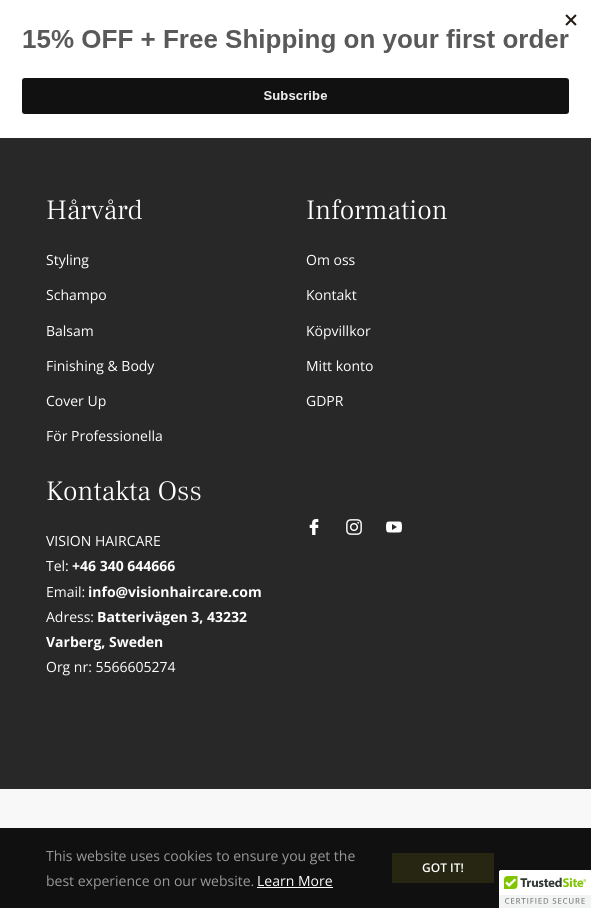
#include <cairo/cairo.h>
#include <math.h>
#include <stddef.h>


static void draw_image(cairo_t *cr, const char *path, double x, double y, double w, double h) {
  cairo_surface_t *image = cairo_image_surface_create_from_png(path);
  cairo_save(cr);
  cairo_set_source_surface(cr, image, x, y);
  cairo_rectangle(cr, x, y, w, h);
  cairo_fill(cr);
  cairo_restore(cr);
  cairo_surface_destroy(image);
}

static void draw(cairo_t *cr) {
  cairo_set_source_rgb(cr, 40 / 255.0, 40 / 255.0, 40 / 255.0);
  cairo_paint(cr);
  cairo_set_source_rgb(cr, 1, 1, 1);
  cairo_rectangle(cr, 0, 0, 591, 138);
  cairo_fill(cr);
  draw_image(cr, "images/1.png", 22, 14, 555, 100);
  draw_image(cr, "images/2.png", 309, 519, 10, 16);
  draw_image(cr, "images/3.png", 346, 519, 16, 16);
  draw_image(cr, "images/4.png", 386, 521, 16, 12);
  cairo_set_source_rgb(cr, 248 / 255.0, 248 / 255.0, 248 / 255.0);
  cairo_rectangle(cr, 0, 789, 591, 39);
  cairo_fill(cr);
  cairo_set_source_rgb(cr, 16 / 255.0, 16 / 255.0, 16 / 255.0);
  cairo_rectangle(cr, 0, 828, 591, 80);
  cairo_fill(cr);
  cairo_set_source_rgb(cr, 1, 1, 1);
  cairo_rectangle(cr, 257, 887, 76, 1);
  cairo_fill(cr);
  cairo_set_source_rgb(cr, 38 / 255.0, 38 / 255.0, 19 / 255.0);
  cairo_rectangle(cr, 392, 853, 102, 30);
  cairo_fill(cr);
  cairo_set_source_rgb(cr, 1, 1, 1);
  cairo_new_path(cr);
  cairo_move_to(cr, 501, 870);
  cairo_line_to(cr, 591, 870);
  cairo_line_to(cr, 591, 908);
  cairo_line_to(cr, 499, 908);
  cairo_line_to(cr, 499, 872);
  cairo_curve_to(cr, 499, 871, 500, 870, 501, 870);
  cairo_close_path(cr);
  cairo_fill(cr);
  draw_image(cr, "images/5.png", 499, 870, 92, 38);
  cairo_select_font_face(cr, "Frank Ruhl Libre Light", CAIRO_FONT_SLANT_NORMAL, CAIRO_FONT_WEIGHT_NORMAL);
  cairo_set_font_size(cr, 28);
  cairo_move_to(cr, 46, 219);
  cairo_show_text(cr, "Hårvård");
  cairo_select_font_face(cr, "Open Sans", CAIRO_FONT_SLANT_NORMAL, CAIRO_FONT_WEIGHT_NORMAL);
  cairo_set_font_size(cr, 14);
  cairo_move_to(cr, 46, 265);
  cairo_show_text(cr, "Styling");
  cairo_move_to(cr, 46, 300);
  cairo_show_text(cr, "Schampo");
  cairo_move_to(cr, 46, 336);
  cairo_show_text(cr, "Balsam");
  cairo_move_to(cr, 46, 371);
  cairo_show_text(cr, "Finishing & Body");
  cairo_move_to(cr, 46, 406);
  cairo_show_text(cr, "Cover Up");
  cairo_move_to(cr, 46, 441);
  cairo_show_text(cr, "För Professionella");
  cairo_select_font_face(cr, "Frank Ruhl Libre Light", CAIRO_FONT_SLANT_NORMAL, CAIRO_FONT_WEIGHT_NORMAL);
  cairo_set_font_size(cr, 28);
  cairo_move_to(cr, 306, 219);
  cairo_show_text(cr, "Information");
  cairo_select_font_face(cr, "Open Sans", CAIRO_FONT_SLANT_NORMAL, CAIRO_FONT_WEIGHT_NORMAL);
  cairo_set_font_size(cr, 14);
  cairo_move_to(cr, 306, 265);
  cairo_show_text(cr, "Om oss");
  cairo_move_to(cr, 306, 300);
  cairo_show_text(cr, "Kontakt");
  cairo_move_to(cr, 306, 336);
  cairo_show_text(cr, "Köpvillkor");
  cairo_move_to(cr, 306, 371);
  cairo_show_text(cr, "Mitt konto");
  cairo_move_to(cr, 306, 406);
  cairo_show_text(cr, "GDPR");
  cairo_select_font_face(cr, "Frank Ruhl Libre Light", CAIRO_FONT_SLANT_NORMAL, CAIRO_FONT_WEIGHT_NORMAL);
  cairo_set_font_size(cr, 28);
  cairo_move_to(cr, 46, 500);
  cairo_show_text(cr, "Kontakta Oss");
  cairo_select_font_face(cr, "Open Sans", CAIRO_FONT_SLANT_NORMAL, CAIRO_FONT_WEIGHT_NORMAL);
  cairo_set_font_size(cr, 14);
  cairo_move_to(cr, 46, 546);
  cairo_show_text(cr, "VISION HAIRCARE");
  cairo_move_to(cr, 46, 571);
  cairo_show_text(cr, "Tel:");
  cairo_select_font_face(cr, "Open Sans", CAIRO_FONT_SLANT_NORMAL, CAIRO_FONT_WEIGHT_BOLD);
  cairo_move_to(cr, 72, 571);
  cairo_show_text(cr, "+46 340 644666");
  cairo_select_font_face(cr, "Open Sans", CAIRO_FONT_SLANT_NORMAL, CAIRO_FONT_WEIGHT_NORMAL);
  cairo_move_to(cr, 46, 597);
  cairo_show_text(cr, "Email:");
  cairo_select_font_face(cr, "Open Sans", CAIRO_FONT_SLANT_NORMAL, CAIRO_FONT_WEIGHT_BOLD);
  cairo_move_to(cr, 88, 597);
  cairo_show_text(cr, "info@visionhaircare.com");
  cairo_select_font_face(cr, "Open Sans", CAIRO_FONT_SLANT_NORMAL, CAIRO_FONT_WEIGHT_NORMAL);
  cairo_move_to(cr, 46, 622);
  cairo_show_text(cr, "Adress:");
  cairo_select_font_face(cr, "Open Sans", CAIRO_FONT_SLANT_NORMAL, CAIRO_FONT_WEIGHT_BOLD);
  cairo_move_to(cr, 97, 622);
  cairo_show_text(cr, "Batterivägen 3, 43232");
  cairo_move_to(cr, 46, 647);
  cairo_show_text(cr, "Varberg, Sweden");
  cairo_select_font_face(cr, "Open Sans", CAIRO_FONT_SLANT_NORMAL, CAIRO_FONT_WEIGHT_NORMAL);
  cairo_move_to(cr, 46, 672);
  cairo_show_text(cr, "Org nr: 5566605274");
  cairo_set_source_rgb(cr, 153 / 255.0, 153 / 255.0, 153 / 255.0);
  cairo_move_to(cr, 46, 861);
  cairo_show_text(cr, "This website uses cookies to ensure you get the");
  cairo_move_to(cr, 46, 886);
  cairo_show_text(cr, "best experience on our website.");
  cairo_set_source_rgb(cr, 1, 1, 1);
  cairo_move_to(cr, 257, 886);
  cairo_show_text(cr, "Learn More");
  cairo_select_font_face(cr, "Open Sans SemiBold", CAIRO_FONT_SLANT_NORMAL, CAIRO_FONT_WEIGHT_NORMAL);
  cairo_set_font_size(cr, 12);
  cairo_move_to(cr, 422, 872);
  cairo_show_text(cr, "GOT IT!");
}

int main(void) {
  cairo_surface_t *surface = cairo_image_surface_create(CAIRO_FORMAT_RGB24, 591, 908);
  cairo_t *cr = cairo_create(surface);
  cairo_font_options_t *options = cairo_font_options_create();
  cairo_font_options_set_hint_metrics(options, CAIRO_HINT_METRICS_OFF);
  cairo_font_options_set_hint_style(options, CAIRO_HINT_STYLE_NONE);
  cairo_set_font_options(cr, options);
  cairo_set_miter_limit(cr, 4);
  draw(cr);
  cairo_surface_write_to_png(surface, "out.png");
  cairo_font_options_destroy(options);
  cairo_destroy(cr);
  cairo_surface_destroy(surface);
  return 0;
}
